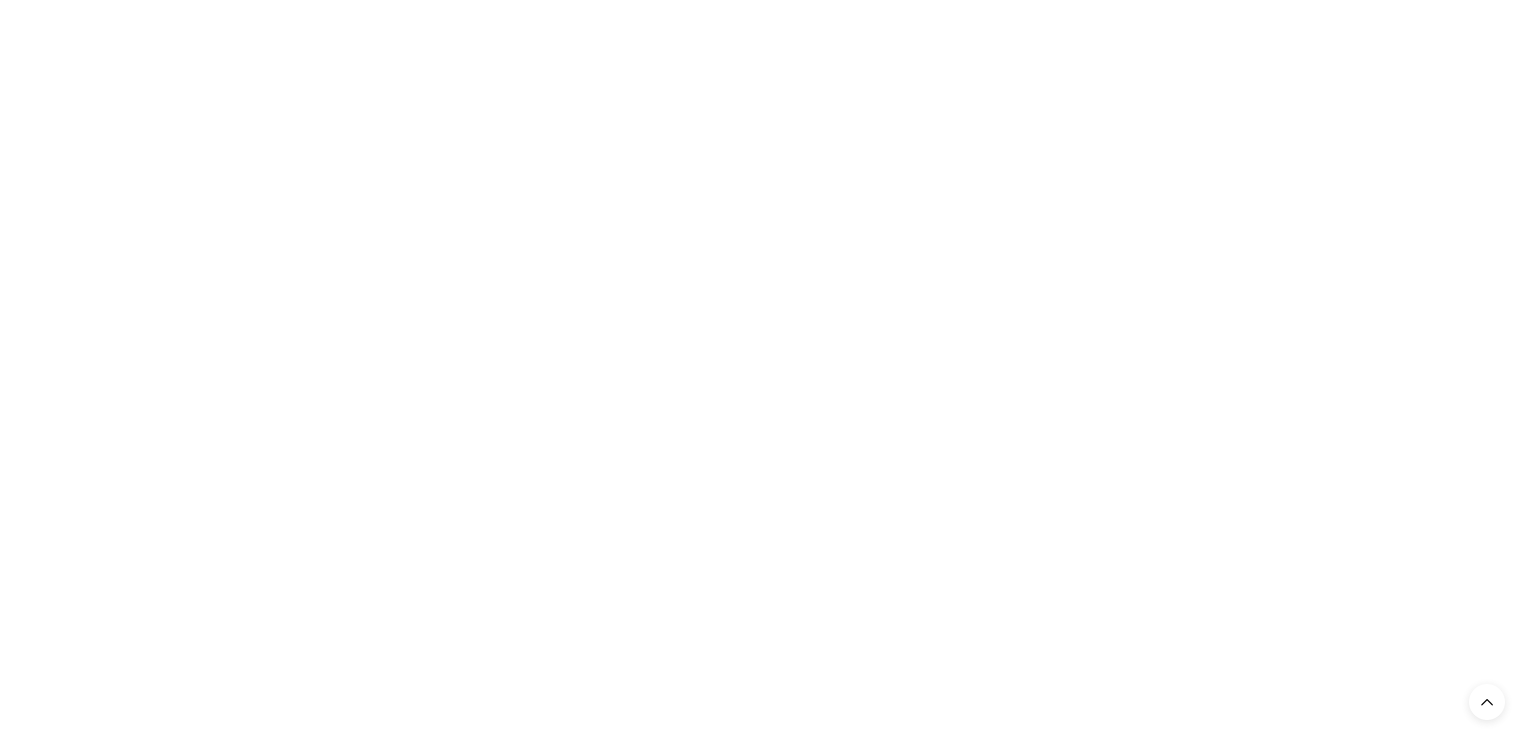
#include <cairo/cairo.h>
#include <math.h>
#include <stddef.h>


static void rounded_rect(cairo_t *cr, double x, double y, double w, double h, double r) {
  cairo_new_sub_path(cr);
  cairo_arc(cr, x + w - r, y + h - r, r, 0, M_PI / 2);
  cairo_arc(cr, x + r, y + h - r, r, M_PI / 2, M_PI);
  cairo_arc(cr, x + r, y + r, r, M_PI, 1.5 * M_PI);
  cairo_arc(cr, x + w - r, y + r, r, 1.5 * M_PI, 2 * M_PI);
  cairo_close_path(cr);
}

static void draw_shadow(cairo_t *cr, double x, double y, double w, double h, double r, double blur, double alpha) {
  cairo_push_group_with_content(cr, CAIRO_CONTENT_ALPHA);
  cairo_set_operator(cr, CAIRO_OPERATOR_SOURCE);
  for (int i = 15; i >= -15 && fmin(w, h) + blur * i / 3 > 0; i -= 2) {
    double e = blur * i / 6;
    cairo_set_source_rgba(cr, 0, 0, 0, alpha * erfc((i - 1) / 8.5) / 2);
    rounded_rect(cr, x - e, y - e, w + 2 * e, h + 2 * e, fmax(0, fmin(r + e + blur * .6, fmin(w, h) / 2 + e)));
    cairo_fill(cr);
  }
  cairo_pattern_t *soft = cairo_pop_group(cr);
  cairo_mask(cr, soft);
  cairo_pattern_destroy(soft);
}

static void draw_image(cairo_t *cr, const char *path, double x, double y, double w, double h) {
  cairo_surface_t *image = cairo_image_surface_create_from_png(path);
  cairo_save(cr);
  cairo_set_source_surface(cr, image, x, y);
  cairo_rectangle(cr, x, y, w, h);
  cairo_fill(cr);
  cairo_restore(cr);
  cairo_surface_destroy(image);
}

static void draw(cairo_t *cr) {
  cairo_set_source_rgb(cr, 1, 1, 1);
  cairo_paint(cr);
  cairo_set_source_rgb(cr, 0, 0, 0);
  draw_shadow(cr, 1469, 686, 36, 36, 18, 4, 0.1);
  cairo_set_source_rgb(cr, 1, 1, 1);
  cairo_arc(cr, 1487, 702, 18, 0, 2 * M_PI);
  cairo_fill(cr);
  draw_image(cr, "images/1.png", 1481, 699, 12, 7);
}

int main(void) {
  cairo_surface_t *surface = cairo_image_surface_create(CAIRO_FORMAT_RGB24, 1535, 750);
  cairo_t *cr = cairo_create(surface);
  cairo_font_options_t *options = cairo_font_options_create();
  cairo_font_options_set_hint_metrics(options, CAIRO_HINT_METRICS_OFF);
  cairo_font_options_set_hint_style(options, CAIRO_HINT_STYLE_NONE);
  cairo_set_font_options(cr, options);
  cairo_set_miter_limit(cr, 4);
  draw(cr);
  cairo_surface_write_to_png(surface, "out.png");
  cairo_font_options_destroy(options);
  cairo_destroy(cr);
  cairo_surface_destroy(surface);
  return 0;
}
